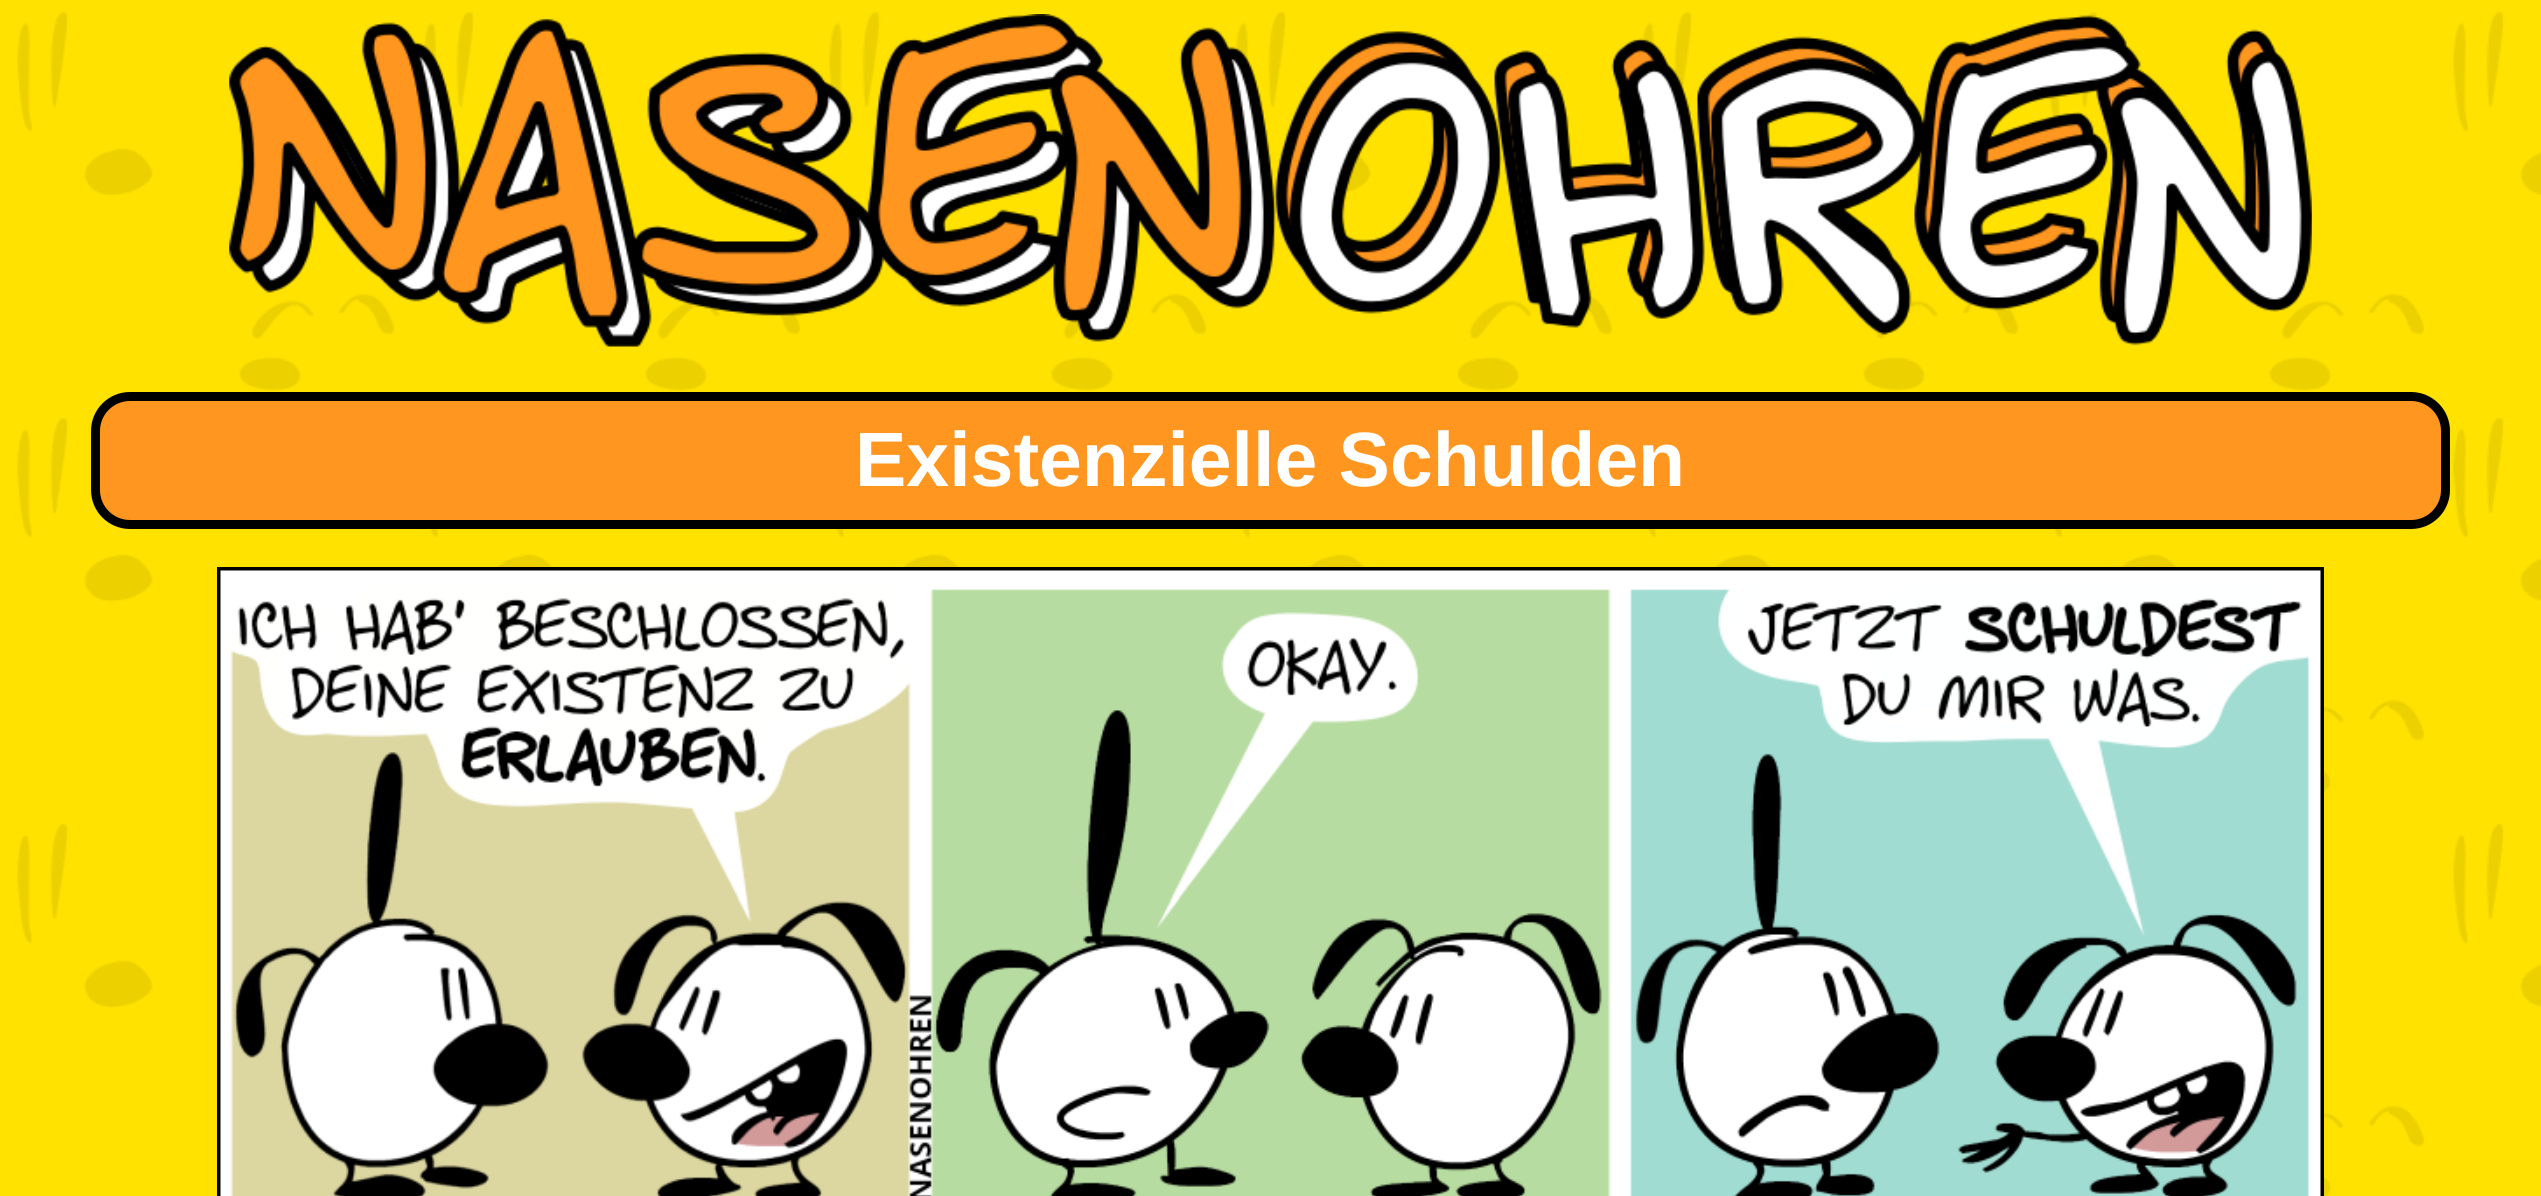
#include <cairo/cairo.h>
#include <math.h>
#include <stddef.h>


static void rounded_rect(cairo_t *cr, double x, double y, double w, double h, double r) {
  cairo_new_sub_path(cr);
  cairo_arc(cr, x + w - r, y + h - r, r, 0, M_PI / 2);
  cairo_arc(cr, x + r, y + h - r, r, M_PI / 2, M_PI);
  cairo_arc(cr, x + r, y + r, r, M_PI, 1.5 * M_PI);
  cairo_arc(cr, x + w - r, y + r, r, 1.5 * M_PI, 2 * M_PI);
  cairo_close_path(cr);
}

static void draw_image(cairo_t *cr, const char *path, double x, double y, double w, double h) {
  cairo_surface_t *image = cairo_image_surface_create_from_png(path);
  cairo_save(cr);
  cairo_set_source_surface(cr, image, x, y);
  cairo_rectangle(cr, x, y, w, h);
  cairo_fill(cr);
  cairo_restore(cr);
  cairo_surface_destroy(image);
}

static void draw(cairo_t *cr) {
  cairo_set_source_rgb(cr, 1, 226 / 255.0, 0);
  cairo_paint(cr);
  draw_image(cr, "images/1.png", 17, 12, 2524, 1184);
  draw_image(cr, "images/2.png", 229, 14, 2083, 333);
  cairo_set_source_rgb(cr, 1, 150 / 255.0, 31 / 255.0);
  rounded_rect(cr, 95.5, 396.5, 2350, 128, 34.5);
  cairo_fill_preserve(cr);
  cairo_set_source_rgb(cr, 0, 0, 0);
  cairo_set_line_width(cr, 9);
  cairo_stroke(cr);
  cairo_rectangle(cr, 219, 569, 2103, 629);
  cairo_set_line_width(cr, 4);
  cairo_stroke(cr);
  draw_image(cr, "images/3.png", 220, 570, 2101, 626);
  cairo_select_font_face(cr, "Liberation Sans", CAIRO_FONT_SLANT_NORMAL, CAIRO_FONT_WEIGHT_BOLD);
  cairo_set_font_size(cr, 77);
  cairo_set_source_rgb(cr, 1, 1, 1);
  cairo_move_to(cr, 855, 486);
  cairo_show_text(cr, "Existenzielle Schulden");
}

int main(void) {
  cairo_surface_t *surface = cairo_image_surface_create(CAIRO_FORMAT_RGB24, 2541, 1196);
  cairo_t *cr = cairo_create(surface);
  cairo_font_options_t *options = cairo_font_options_create();
  cairo_font_options_set_hint_metrics(options, CAIRO_HINT_METRICS_OFF);
  cairo_font_options_set_hint_style(options, CAIRO_HINT_STYLE_NONE);
  cairo_set_font_options(cr, options);
  cairo_set_miter_limit(cr, 4);
  draw(cr);
  cairo_surface_write_to_png(surface, "out.png");
  cairo_font_options_destroy(options);
  cairo_destroy(cr);
  cairo_surface_destroy(surface);
  return 0;
}
